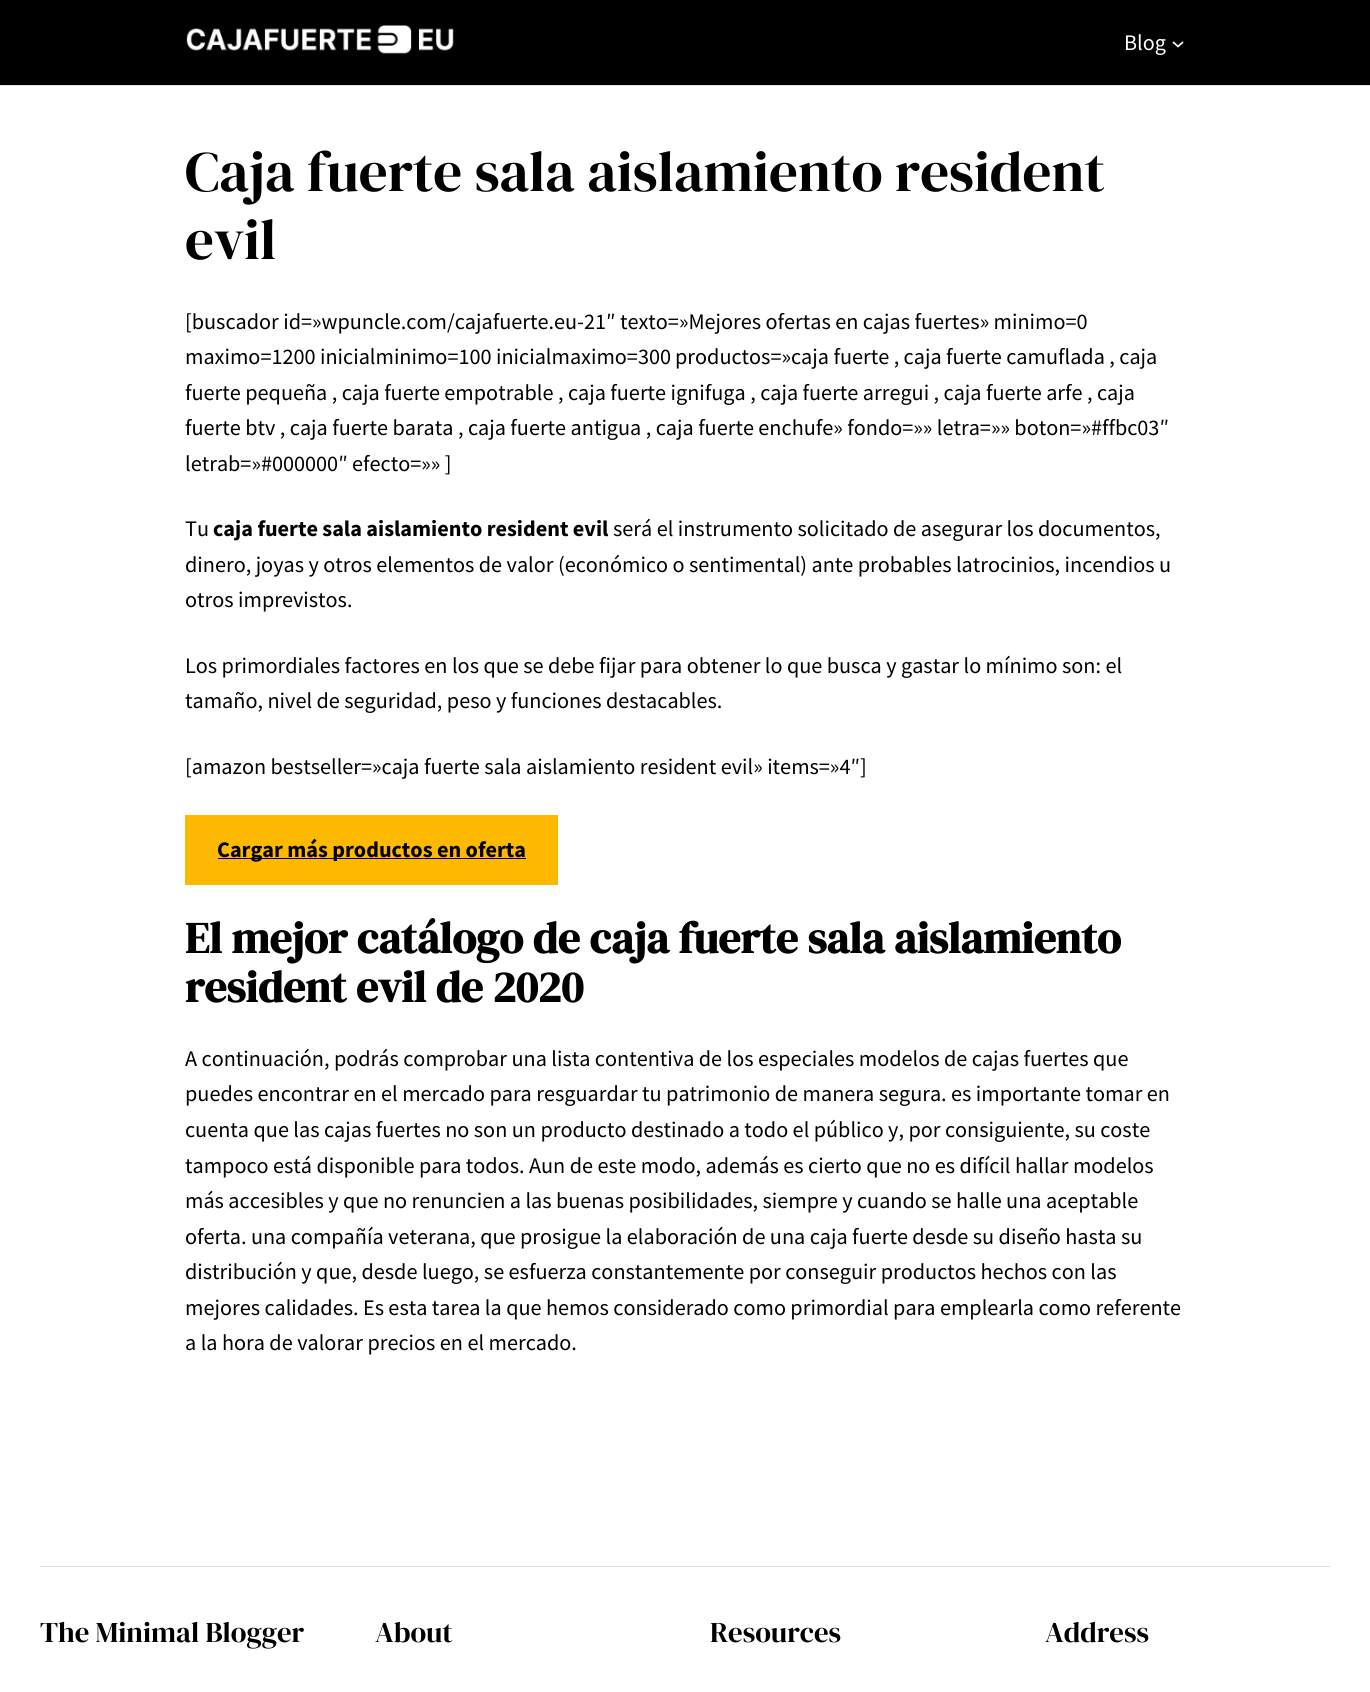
#include <cairo/cairo.h>
#include <math.h>
#include <stddef.h>


static void draw_image(cairo_t *cr, const char *path, double x, double y, double w, double h) {
  cairo_surface_t *image = cairo_image_surface_create_from_png(path);
  cairo_save(cr);
  cairo_set_source_surface(cr, image, x, y);
  cairo_rectangle(cr, x, y, w, h);
  cairo_fill(cr);
  cairo_restore(cr);
  cairo_surface_destroy(image);
}

static void draw(cairo_t *cr) {
  cairo_set_source_rgb(cr, 1, 1, 1);
  cairo_paint(cr);
  cairo_set_source_rgb(cr, 0, 0, 0);
  cairo_rectangle(cr, 0, 0, 1370, 85);
  cairo_fill(cr);
  cairo_set_source_rgb(cr, 226 / 255.0, 232 / 255.0, 240 / 255.0);
  cairo_rectangle(cr, 0, 85, 1370, 1);
  cairo_fill(cr);
  draw_image(cr, "images/1.png", 186, 25, 268, 29);
  cairo_new_path(cr);
  cairo_move_to(cr, 1173, 42);
  cairo_line_to(cr, 1178, 46.5);
  cairo_line_to(cr, 1183, 42);
  cairo_set_source_rgb(cr, 1, 1, 1);
  cairo_set_line_width(cr, 1.7);
  cairo_stroke(cr);
  cairo_set_source_rgb(cr, 252 / 255.0, 185 / 255.0, 0);
  cairo_rectangle(cr, 185, 815, 373, 70);
  cairo_fill(cr);
  cairo_set_source_rgb(cr, 0, 0, 0);
  cairo_rectangle(cr, 218, 858, 308, 1);
  cairo_fill(cr);
  cairo_set_source_rgb(cr, 222 / 255.0, 222 / 255.0, 222 / 255.0);
  cairo_rectangle(cr, 40, 1566, 1290, 1);
  cairo_fill(cr);
  cairo_select_font_face(cr, "Source Sans Pro", CAIRO_FONT_SLANT_NORMAL, CAIRO_FONT_WEIGHT_NORMAL);
  cairo_set_font_size(cr, 22.2);
  cairo_set_source_rgb(cr, 1, 1, 1);
  cairo_move_to(cr, 1124, 50);
  cairo_show_text(cr, "Blog");
  cairo_select_font_face(cr, "DM Serif Display", CAIRO_FONT_SLANT_NORMAL, CAIRO_FONT_WEIGHT_NORMAL);
  cairo_set_font_size(cr, 57);
  cairo_set_source_rgb(cr, 0, 0, 0);
  cairo_move_to(cr, 185, 191);
  cairo_show_text(cr, "Caja fuerte sala aislamiento resident");
  cairo_move_to(cr, 185, 259);
  cairo_show_text(cr, "evil");
  cairo_select_font_face(cr, "Source Sans Pro", CAIRO_FONT_SLANT_NORMAL, CAIRO_FONT_WEIGHT_NORMAL);
  cairo_set_font_size(cr, 22.2);
  cairo_move_to(cr, 185, 329);
  cairo_show_text(cr, "[buscador id=»wpuncle.com/cajafuerte.eu-21″ texto=»Mejores ofertas en cajas fuertes» minimo=0");
  cairo_move_to(cr, 185, 364);
  cairo_show_text(cr, "maximo=1200 inicialminimo=100 inicialmaximo=300");
  cairo_move_to(cr, 675, 364);
  cairo_show_text(cr, "productos=»caja fuerte , caja fuerte camuflada , caja");
  cairo_move_to(cr, 185, 400);
  cairo_show_text(cr, "fuerte pequeña , caja fuerte empotrable , caja fuerte ignifuga , caja fuerte arregui , caja fuerte arfe , caja");
  cairo_move_to(cr, 185, 435);
  cairo_show_text(cr, "fuerte btv , caja fuerte barata , caja fuerte antigua , caja fuerte enchufe» fondo=»» letra=»» boton=»#ffbc03″");
  cairo_move_to(cr, 185, 471);
  cairo_show_text(cr, "letrab=»#000000″ efecto=»» ]");
  cairo_move_to(cr, 185, 536);
  cairo_show_text(cr, "Tu");
  cairo_select_font_face(cr, "Source Sans Pro", CAIRO_FONT_SLANT_NORMAL, CAIRO_FONT_WEIGHT_BOLD);
  cairo_move_to(cr, 213, 536);
  cairo_show_text(cr, "caja fuerte sala aislamiento resident evil");
  cairo_select_font_face(cr, "Source Sans Pro", CAIRO_FONT_SLANT_NORMAL, CAIRO_FONT_WEIGHT_NORMAL);
  cairo_move_to(cr, 613, 536);
  cairo_show_text(cr, "será el instrumento solicitado de asegurar los documentos,");
  cairo_move_to(cr, 185, 572);
  cairo_show_text(cr, "dinero, joyas y otros elementos de valor (económico o sentimental) ante probables latrocinios, incendios u");
  cairo_move_to(cr, 185, 607);
  cairo_show_text(cr, "otros imprevistos.");
  cairo_move_to(cr, 185, 673);
  cairo_show_text(cr, "Los primordiales factores en los que se debe fijar para obtener lo que busca y gastar lo mínimo son: el");
  cairo_move_to(cr, 185, 708);
  cairo_show_text(cr, "tamaño, nivel de seguridad, peso y funciones destacables.");
  cairo_move_to(cr, 185, 774);
  cairo_show_text(cr, "[amazon bestseller=»caja fuerte sala aislamiento resident evil» items=»4″]");
  cairo_select_font_face(cr, "Source Sans Pro", CAIRO_FONT_SLANT_NORMAL, CAIRO_FONT_WEIGHT_BOLD);
  cairo_move_to(cr, 217, 857);
  cairo_show_text(cr, "Cargar más productos en oferta");
  cairo_select_font_face(cr, "DM Serif Display", CAIRO_FONT_SLANT_NORMAL, CAIRO_FONT_WEIGHT_BOLD);
  cairo_set_font_size(cr, 43.8);
  cairo_move_to(cr, 185, 953);
  cairo_show_text(cr, "El mejor catálogo de caja fuerte sala aislamiento");
  cairo_move_to(cr, 185, 1002);
  cairo_show_text(cr, "resident evil de 2020");
  cairo_select_font_face(cr, "Source Sans Pro", CAIRO_FONT_SLANT_NORMAL, CAIRO_FONT_WEIGHT_NORMAL);
  cairo_set_font_size(cr, 22.2);
  cairo_move_to(cr, 185, 1066);
  cairo_show_text(cr, "A continuación, podrás comprobar una lista contentiva de los especiales modelos de cajas fuertes que");
  cairo_move_to(cr, 185, 1101);
  cairo_show_text(cr, "puedes encontrar en el mercado para resguardar tu patrimonio de manera segura. es importante tomar en");
  cairo_move_to(cr, 185, 1137);
  cairo_show_text(cr, "cuenta que las cajas fuertes no son un producto destinado a todo el público y, por consiguiente, su coste");
  cairo_move_to(cr, 185, 1173);
  cairo_show_text(cr, "tampoco está disponible para todos. Aun de este modo, además es cierto que no es difícil hallar modelos");
  cairo_move_to(cr, 185, 1208);
  cairo_show_text(cr, "más accesibles y que no renuncien a las buenas posibilidades, siempre y cuando se halle una aceptable");
  cairo_move_to(cr, 185, 1244);
  cairo_show_text(cr, "oferta. una compañía veterana, que prosigue la elaboración de una caja fuerte desde su diseño hasta su");
  cairo_move_to(cr, 185, 1279);
  cairo_show_text(cr, "distribución y que, desde luego, se esfuerza constantemente por conseguir productos hechos con las");
  cairo_move_to(cr, 185, 1315);
  cairo_show_text(cr, "mejores calidades. Es esta tarea la que hemos considerado como primordial para emplearla como referente");
  cairo_move_to(cr, 185, 1350);
  cairo_show_text(cr, "a la hora de valorar precios en el mercado.");
  cairo_select_font_face(cr, "DM Serif Display", CAIRO_FONT_SLANT_NORMAL, CAIRO_FONT_WEIGHT_NORMAL);
  cairo_set_font_size(cr, 28.75);
  cairo_move_to(cr, 40, 1642);
  cairo_show_text(cr, "The Minimal Blogger");
  cairo_move_to(cr, 375, 1642);
  cairo_show_text(cr, "About");
  cairo_move_to(cr, 710, 1642);
  cairo_show_text(cr, "Resources");
  cairo_move_to(cr, 1045, 1642);
  cairo_show_text(cr, "Address");
}

int main(void) {
  cairo_surface_t *surface = cairo_image_surface_create(CAIRO_FORMAT_RGB24, 1370, 1692);
  cairo_t *cr = cairo_create(surface);
  cairo_font_options_t *options = cairo_font_options_create();
  cairo_font_options_set_hint_metrics(options, CAIRO_HINT_METRICS_OFF);
  cairo_font_options_set_hint_style(options, CAIRO_HINT_STYLE_NONE);
  cairo_set_font_options(cr, options);
  cairo_set_miter_limit(cr, 4);
  draw(cr);
  cairo_surface_write_to_png(surface, "out.png");
  cairo_font_options_destroy(options);
  cairo_destroy(cr);
  cairo_surface_destroy(surface);
  return 0;
}
